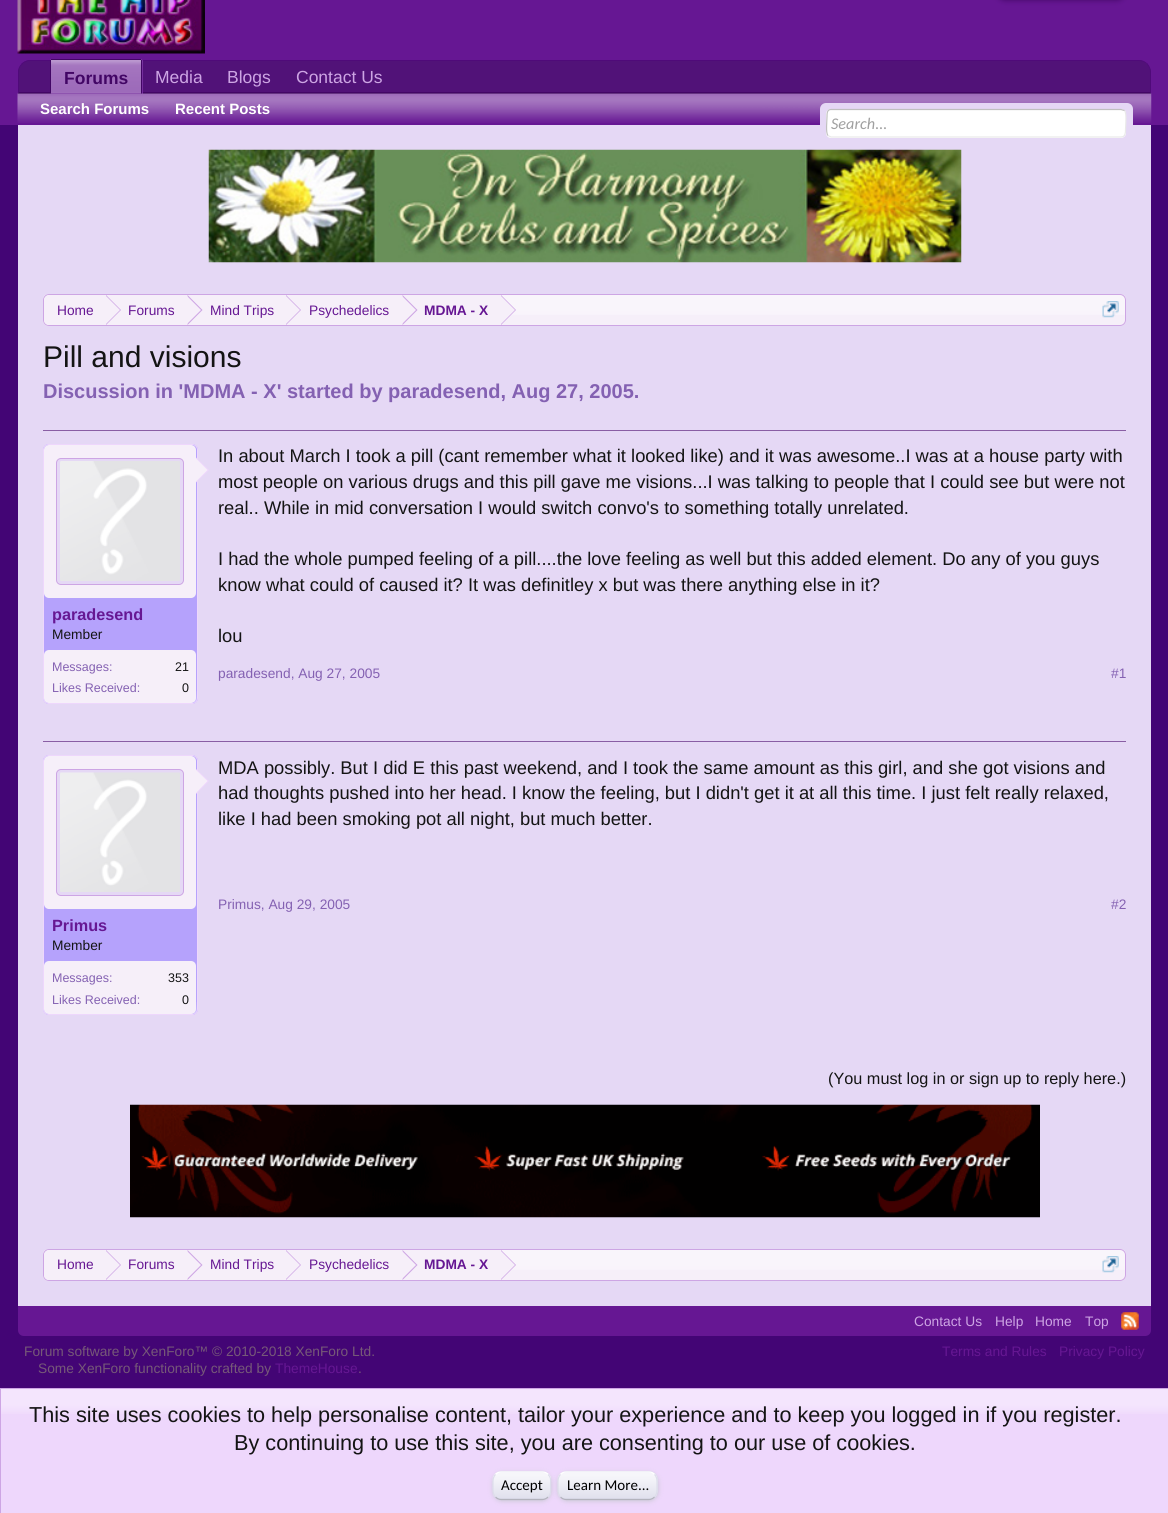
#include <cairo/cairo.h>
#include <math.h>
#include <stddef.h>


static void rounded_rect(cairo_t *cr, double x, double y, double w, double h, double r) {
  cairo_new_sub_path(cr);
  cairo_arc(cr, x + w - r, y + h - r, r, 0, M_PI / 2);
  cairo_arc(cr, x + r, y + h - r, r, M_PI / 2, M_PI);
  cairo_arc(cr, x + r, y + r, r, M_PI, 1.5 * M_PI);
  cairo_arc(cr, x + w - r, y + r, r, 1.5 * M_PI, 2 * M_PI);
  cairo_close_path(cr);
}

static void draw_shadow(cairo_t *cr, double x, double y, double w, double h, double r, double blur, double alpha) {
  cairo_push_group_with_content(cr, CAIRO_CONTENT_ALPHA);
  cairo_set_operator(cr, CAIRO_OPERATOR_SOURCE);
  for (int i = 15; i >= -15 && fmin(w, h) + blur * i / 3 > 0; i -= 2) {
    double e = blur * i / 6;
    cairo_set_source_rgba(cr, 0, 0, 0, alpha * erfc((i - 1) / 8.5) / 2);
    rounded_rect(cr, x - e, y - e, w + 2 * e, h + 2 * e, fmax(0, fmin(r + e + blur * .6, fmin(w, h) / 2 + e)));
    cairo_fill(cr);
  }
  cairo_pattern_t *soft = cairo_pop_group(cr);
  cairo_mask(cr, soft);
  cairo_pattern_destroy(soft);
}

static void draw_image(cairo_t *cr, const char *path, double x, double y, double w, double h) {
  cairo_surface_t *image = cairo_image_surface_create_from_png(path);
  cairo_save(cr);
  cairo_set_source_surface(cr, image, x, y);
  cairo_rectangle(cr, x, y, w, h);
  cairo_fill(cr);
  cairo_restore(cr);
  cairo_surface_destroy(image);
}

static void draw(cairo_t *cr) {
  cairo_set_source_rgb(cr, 67 / 255.0, 5 / 255.0, 117 / 255.0);
  cairo_paint(cr);
  cairo_set_source_rgb(cr, 102 / 255.0, 23 / 255.0, 147 / 255.0);
  cairo_rectangle(cr, 0, 0, 1168, 125);
  cairo_fill(cr);
  cairo_set_source_rgb(cr, 66 / 255.0, 6 / 255.0, 101 / 255.0);
  draw_shadow(cr, 996, -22, 130, 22, 12.5, 3, 1);
  draw_image(cr, "images/1.png", 17, 0, 188, 54);
  cairo_set_source_rgb(cr, 81 / 255.0, 18 / 255.0, 120 / 255.0);
  cairo_new_path(cr);
  cairo_move_to(cr, 31, 60);
  cairo_line_to(cr, 1138, 60);
  cairo_curve_to(cr, 1145, 60, 1151, 66, 1151, 73);
  cairo_line_to(cr, 1151, 94);
  cairo_line_to(cr, 18, 94);
  cairo_line_to(cr, 18, 73);
  cairo_curve_to(cr, 18, 66, 24, 60, 31, 60);
  cairo_close_path(cr);
  cairo_fill(cr);
  cairo_set_source_rgb(cr, 79 / 255.0, 10 / 255.0, 121 / 255.0);
  cairo_new_path(cr);
  cairo_move_to(cr, 30, 60);
  cairo_curve_to(cr, 26, 60, 23, 62, 21, 64);
  cairo_line_to(cr, 22, 65);
  cairo_curve_to(cr, 24, 62, 27, 61, 30, 61);
  cairo_line_to(cr, 1139, 61);
  cairo_curve_to(cr, 1142, 61, 1145, 62, 1147, 64);
  cairo_line_to(cr, 1148, 64);
  cairo_curve_to(cr, 1145, 61, 1142, 60, 1139, 60);
  cairo_close_path(cr);
  cairo_fill(cr);
  cairo_new_path(cr);
  cairo_move_to(cr, 1147.5, 63.5);
  cairo_curve_to(cr, 1149.5, 66, 1151, 69, 1151, 72);
  cairo_line_to(cr, 1151, 93.5);
  cairo_line_to(cr, 1149.5, 92);
  cairo_line_to(cr, 1150, 92);
  cairo_line_to(cr, 1150, 72);
  cairo_curve_to(cr, 1150, 69, 1149, 66.5, 1147, 64.5);
  cairo_close_path(cr);
  cairo_fill(cr);
  cairo_set_source_rgb(cr, 66 / 255.0, 6 / 255.0, 101 / 255.0);
  cairo_new_path(cr);
  cairo_move_to(cr, 18, 94);
  cairo_line_to(cr, 19, 92);
  cairo_line_to(cr, 1150, 92);
  cairo_line_to(cr, 1151, 94);
  cairo_close_path(cr);
  cairo_fill(cr);
  cairo_set_source_rgb(cr, 79 / 255.0, 10 / 255.0, 121 / 255.0);
  cairo_new_path(cr);
  cairo_move_to(cr, 21.5, 64);
  cairo_curve_to(cr, 19, 66, 18, 69, 18, 72);
  cairo_line_to(cr, 18, 93);
  cairo_line_to(cr, 19, 92);
  cairo_line_to(cr, 19, 72);
  cairo_curve_to(cr, 19, 69, 20, 66.5, 22, 64.5);
  cairo_close_path(cr);
  cairo_fill(cr);
  cairo_set_source_rgb(cr, 102 / 255.0, 23 / 255.0, 147 / 255.0);
  cairo_new_path(cr);
  cairo_move_to(cr, 52.5, 59);
  cairo_line_to(cr, 140.5, 59);
  cairo_curve_to(cr, 142, 59, 143, 60, 143, 61.5);
  cairo_line_to(cr, 143, 94);
  cairo_line_to(cr, 50, 94);
  cairo_line_to(cr, 50, 61.5);
  cairo_curve_to(cr, 50, 60, 51, 59, 52.5, 59);
  cairo_close_path(cr);
  cairo_fill(cr);
  draw_image(cr, "images/2.png", 50, 59, 93, 35);
  cairo_set_source_rgb(cr, 66 / 255.0, 6 / 255.0, 101 / 255.0);
  cairo_rectangle(cr, 51, 59, 90, 1);
  cairo_fill(cr);
  cairo_rectangle(cr, 141, 60, 1, 34);
  cairo_fill(cr);
  cairo_rectangle(cr, 50, 60, 1, 34);
  cairo_fill(cr);
  draw_image(cr, "images/3.png", 17, 93, 1135, 30);
  cairo_set_source_rgb(cr, 229 / 255.0, 216 / 255.0, 245 / 255.0);
  cairo_rectangle(cr, 18, 125, 1133, 1181);
  cairo_fill(cr);
  rounded_rect(cr, 820, 103, 313, 35, 6);
  cairo_fill(cr);
  cairo_set_source_rgb(cr, 1, 1, 1);
  rounded_rect(cr, 826, 109, 300, 29, 5);
  cairo_fill(cr);
  cairo_new_path(cr);
  cairo_move_to(cr, 1124.5, 110.5);
  cairo_curve_to(cr, 1127, 113.5, 1125.5, 125.5, 1125.5, 129.5);
  cairo_curve_to(cr, 1125.5, 132.5, 1125.5, 137, 1121, 137);
  cairo_line_to(cr, 831, 137);
  cairo_line_to(cr, 828, 135.5);
  cairo_set_source_rgb(cr, 233 / 255.0, 233 / 255.0, 233 / 255.0);
  cairo_set_line_width(cr, 1.2);
  cairo_stroke(cr);
  cairo_new_path(cr);
  cairo_move_to(cr, 828, 135.5);
  cairo_curve_to(cr, 825.5, 133, 827, 120.5, 827, 117);
  cairo_curve_to(cr, 827, 113.5, 827, 109.5, 831, 109.5);
  cairo_line_to(cr, 1121, 109.5);
  cairo_line_to(cr, 1124.5, 110.5);
  cairo_set_source_rgb(cr, 192 / 255.0, 192 / 255.0, 192 / 255.0);
  cairo_stroke(cr);
  draw_image(cr, "images/4.png", 208, 149, 754, 114);
  cairo_set_source_rgb(cr, 246 / 255.0, 239 / 255.0, 249 / 255.0);
  rounded_rect(cr, 43, 294, 1083, 32, 6);
  cairo_fill(cr);
  draw_image(cr, "images/5.png", 43, 295, 1083, 20);
  rounded_rect(cr, 43.5, 294.5, 1082, 31, 5.5);
  cairo_set_source_rgb(cr, 205 / 255.0, 165 / 255.0, 228 / 255.0);
  cairo_set_line_width(cr, 1);
  cairo_stroke(cr);
  cairo_save(cr);
  rounded_rect(cr, 44, 295, 1081, 30, 5);
  cairo_clip(cr);
  cairo_set_source_rgb(cr, 246 / 255.0, 239 / 255.0, 249 / 255.0);
  cairo_new_path(cr);
  cairo_move_to(cr, 50, 295);
  cairo_line_to(cr, 106, 295);
  cairo_line_to(cr, 106, 326);
  cairo_line_to(cr, 50, 326);
  cairo_curve_to(cr, 46.5, 326, 44, 323.5, 44, 320);
  cairo_line_to(cr, 44, 301);
  cairo_curve_to(cr, 44, 297.5, 46.5, 295, 50, 295);
  cairo_close_path(cr);
  cairo_fill(cr);
  cairo_restore(cr);
  cairo_set_source_rgb(cr, 246 / 255.0, 239 / 255.0, 249 / 255.0);
  cairo_rectangle(cr, 106, 295, 395, 20);
  cairo_fill(cr);
  cairo_set_source_rgb(cr, 205 / 255.0, 165 / 255.0, 228 / 255.0);
  cairo_new_path(cr);
  cairo_move_to(cr, 106, 325);
  cairo_line_to(cr, 106, 295);
  cairo_line_to(cr, 121, 310);
  cairo_close_path(cr);
  cairo_fill(cr);
  cairo_set_source_rgb(cr, 246 / 255.0, 239 / 255.0, 249 / 255.0);
  cairo_new_path(cr);
  cairo_move_to(cr, 105, 325);
  cairo_line_to(cr, 105, 295);
  cairo_line_to(cr, 120, 310);
  cairo_close_path(cr);
  cairo_fill(cr);
  cairo_set_source_rgb(cr, 205 / 255.0, 165 / 255.0, 228 / 255.0);
  cairo_new_path(cr);
  cairo_move_to(cr, 187.5, 325);
  cairo_line_to(cr, 187.5, 295);
  cairo_line_to(cr, 202.5, 310);
  cairo_close_path(cr);
  cairo_fill(cr);
  cairo_set_source_rgb(cr, 246 / 255.0, 239 / 255.0, 249 / 255.0);
  cairo_new_path(cr);
  cairo_move_to(cr, 186, 325);
  cairo_line_to(cr, 186, 295);
  cairo_line_to(cr, 201, 310);
  cairo_close_path(cr);
  cairo_fill(cr);
  cairo_set_source_rgb(cr, 205 / 255.0, 165 / 255.0, 228 / 255.0);
  cairo_new_path(cr);
  cairo_move_to(cr, 286, 325);
  cairo_line_to(cr, 286, 295);
  cairo_line_to(cr, 301, 310);
  cairo_close_path(cr);
  cairo_fill(cr);
  cairo_set_source_rgb(cr, 246 / 255.0, 239 / 255.0, 249 / 255.0);
  cairo_new_path(cr);
  cairo_move_to(cr, 285, 325);
  cairo_line_to(cr, 285, 295);
  cairo_line_to(cr, 300, 310);
  cairo_close_path(cr);
  cairo_fill(cr);
  cairo_set_source_rgb(cr, 205 / 255.0, 165 / 255.0, 228 / 255.0);
  cairo_new_path(cr);
  cairo_move_to(cr, 402.5, 325);
  cairo_line_to(cr, 402.5, 295);
  cairo_line_to(cr, 417.5, 310);
  cairo_close_path(cr);
  cairo_fill(cr);
  cairo_set_source_rgb(cr, 246 / 255.0, 239 / 255.0, 249 / 255.0);
  cairo_new_path(cr);
  cairo_move_to(cr, 401, 325);
  cairo_line_to(cr, 401, 295);
  cairo_line_to(cr, 416, 310);
  cairo_close_path(cr);
  cairo_fill(cr);
  cairo_set_source_rgb(cr, 205 / 255.0, 165 / 255.0, 228 / 255.0);
  cairo_new_path(cr);
  cairo_move_to(cr, 501, 325);
  cairo_line_to(cr, 501, 295);
  cairo_line_to(cr, 516, 310);
  cairo_close_path(cr);
  cairo_fill(cr);
  cairo_set_source_rgb(cr, 246 / 255.0, 239 / 255.0, 249 / 255.0);
  cairo_new_path(cr);
  cairo_move_to(cr, 500, 325);
  cairo_line_to(cr, 500, 295);
  cairo_line_to(cr, 515, 310);
  cairo_close_path(cr);
  cairo_fill(cr);
  draw_image(cr, "images/6.png", 1102, 301, 17, 17);
  cairo_set_source_rgb(cr, 137 / 255.0, 94 / 255.0, 164 / 255.0);
  cairo_rectangle(cr, 43, 430, 1083, 1);
  cairo_fill(cr);
  cairo_set_source_rgb(cr, 181 / 255.0, 162 / 255.0, 252 / 255.0);
  rounded_rect(cr, 43, 444, 155, 260, 6);
  cairo_fill(cr);
  draw_image(cr, "images/7.png", 43, 691, 155, 12);
  rounded_rect(cr, 43.5, 444.5, 154, 259, 5.5);
  cairo_set_source_rgb(cr, 238 / 255.0, 215 / 255.0, 252 / 255.0);
  cairo_stroke(cr);
  cairo_set_source_rgb(cr, 246 / 255.0, 239 / 255.0, 249 / 255.0);
  rounded_rect(cr, 44, 445, 152, 153, 5);
  cairo_fill(cr);
  cairo_set_source_rgb(cr, 229 / 255.0, 216 / 255.0, 245 / 255.0);
  rounded_rect(cr, 56.5, 458.5, 127, 126, 4.5);
  cairo_fill_preserve(cr);
  cairo_set_source_rgb(cr, 205 / 255.0, 165 / 255.0, 228 / 255.0);
  cairo_stroke(cr);
  draw_image(cr, "images/8.png", 60, 461, 120, 120);
  cairo_set_source_rgb(cr, 238 / 255.0, 215 / 255.0, 252 / 255.0);
  cairo_new_path(cr);
  cairo_move_to(cr, 196, 482.5);
  cairo_line_to(cr, 196, 457.5);
  cairo_line_to(cr, 209, 470);
  cairo_close_path(cr);
  cairo_fill(cr);
  cairo_set_source_rgb(cr, 246 / 255.0, 239 / 255.0, 249 / 255.0);
  cairo_new_path(cr);
  cairo_move_to(cr, 195, 482.5);
  cairo_line_to(cr, 195, 457.5);
  cairo_line_to(cr, 207.5, 470);
  cairo_close_path(cr);
  cairo_fill(cr);
  rounded_rect(cr, 44, 650, 152, 53, 5);
  cairo_fill(cr);
  cairo_set_source_rgb(cr, 137 / 255.0, 94 / 255.0, 164 / 255.0);
  cairo_rectangle(cr, 43, 741, 1083, 1);
  cairo_fill(cr);
  cairo_set_source_rgb(cr, 181 / 255.0, 162 / 255.0, 252 / 255.0);
  rounded_rect(cr, 43, 755, 155, 260, 6);
  cairo_fill(cr);
  draw_image(cr, "images/9.png", 43, 1002, 155, 12);
  rounded_rect(cr, 43.5, 755.5, 154, 259, 5.5);
  cairo_set_source_rgb(cr, 238 / 255.0, 215 / 255.0, 252 / 255.0);
  cairo_stroke(cr);
  cairo_set_source_rgb(cr, 246 / 255.0, 239 / 255.0, 249 / 255.0);
  rounded_rect(cr, 44, 756, 152, 153, 5);
  cairo_fill(cr);
  cairo_set_source_rgb(cr, 229 / 255.0, 216 / 255.0, 245 / 255.0);
  rounded_rect(cr, 56.5, 769.5, 127, 126, 4.5);
  cairo_fill_preserve(cr);
  cairo_set_source_rgb(cr, 205 / 255.0, 165 / 255.0, 228 / 255.0);
  cairo_stroke(cr);
  draw_image(cr, "images/10.png", 60, 772, 120, 120);
  cairo_set_source_rgb(cr, 238 / 255.0, 215 / 255.0, 252 / 255.0);
  cairo_new_path(cr);
  cairo_move_to(cr, 196, 794);
  cairo_line_to(cr, 196, 769);
  cairo_line_to(cr, 209, 781);
  cairo_close_path(cr);
  cairo_fill(cr);
  cairo_set_source_rgb(cr, 246 / 255.0, 239 / 255.0, 249 / 255.0);
  cairo_new_path(cr);
  cairo_move_to(cr, 195, 794);
  cairo_line_to(cr, 195, 769);
  cairo_line_to(cr, 207.5, 781);
  cairo_close_path(cr);
  cairo_fill(cr);
  rounded_rect(cr, 44, 961, 152, 53, 5);
  cairo_fill(cr);
  draw_image(cr, "images/11.png", 130, 1104, 910, 114);
  rounded_rect(cr, 43, 1249, 1083, 32, 6);
  cairo_fill(cr);
  draw_image(cr, "images/5.png", 43, 1250, 1083, 20);
  rounded_rect(cr, 43.5, 1249.5, 1082, 31, 5.5);
  cairo_set_source_rgb(cr, 205 / 255.0, 165 / 255.0, 228 / 255.0);
  cairo_stroke(cr);
  cairo_save(cr);
  rounded_rect(cr, 44, 1250, 1081, 30, 5);
  cairo_clip(cr);
  cairo_set_source_rgb(cr, 246 / 255.0, 239 / 255.0, 249 / 255.0);
  cairo_new_path(cr);
  cairo_move_to(cr, 50, 1250);
  cairo_line_to(cr, 106, 1250);
  cairo_line_to(cr, 106, 1281);
  cairo_line_to(cr, 50, 1281);
  cairo_curve_to(cr, 46.5, 1281, 44, 1278.5, 44, 1275);
  cairo_line_to(cr, 44, 1256);
  cairo_curve_to(cr, 44, 1252.5, 46.5, 1250, 50, 1250);
  cairo_close_path(cr);
  cairo_fill(cr);
  cairo_restore(cr);
  cairo_set_source_rgb(cr, 246 / 255.0, 239 / 255.0, 249 / 255.0);
  cairo_rectangle(cr, 106, 1250, 395, 20);
  cairo_fill(cr);
  cairo_set_source_rgb(cr, 205 / 255.0, 165 / 255.0, 228 / 255.0);
  cairo_new_path(cr);
  cairo_move_to(cr, 106, 1280);
  cairo_line_to(cr, 106, 1250);
  cairo_line_to(cr, 121, 1265);
  cairo_close_path(cr);
  cairo_fill(cr);
  cairo_set_source_rgb(cr, 246 / 255.0, 239 / 255.0, 249 / 255.0);
  cairo_new_path(cr);
  cairo_move_to(cr, 105, 1280);
  cairo_line_to(cr, 105, 1250);
  cairo_line_to(cr, 120, 1265);
  cairo_close_path(cr);
  cairo_fill(cr);
  cairo_set_source_rgb(cr, 205 / 255.0, 165 / 255.0, 228 / 255.0);
  cairo_new_path(cr);
  cairo_move_to(cr, 187.5, 1280);
  cairo_line_to(cr, 187.5, 1250);
  cairo_line_to(cr, 202.5, 1265);
  cairo_close_path(cr);
  cairo_fill(cr);
  cairo_set_source_rgb(cr, 246 / 255.0, 239 / 255.0, 249 / 255.0);
  cairo_new_path(cr);
  cairo_move_to(cr, 186, 1280);
  cairo_line_to(cr, 186, 1250);
  cairo_line_to(cr, 201, 1265);
  cairo_close_path(cr);
  cairo_fill(cr);
  cairo_set_source_rgb(cr, 205 / 255.0, 165 / 255.0, 228 / 255.0);
  cairo_new_path(cr);
  cairo_move_to(cr, 286, 1280);
  cairo_line_to(cr, 286, 1250);
  cairo_line_to(cr, 301, 1265);
  cairo_close_path(cr);
  cairo_fill(cr);
  cairo_set_source_rgb(cr, 246 / 255.0, 239 / 255.0, 249 / 255.0);
  cairo_new_path(cr);
  cairo_move_to(cr, 285, 1280);
  cairo_line_to(cr, 285, 1250);
  cairo_line_to(cr, 300, 1265);
  cairo_close_path(cr);
  cairo_fill(cr);
  cairo_set_source_rgb(cr, 205 / 255.0, 165 / 255.0, 228 / 255.0);
  cairo_new_path(cr);
  cairo_move_to(cr, 402.5, 1280);
  cairo_line_to(cr, 402.5, 1250);
  cairo_line_to(cr, 417.5, 1265);
  cairo_close_path(cr);
  cairo_fill(cr);
  cairo_set_source_rgb(cr, 246 / 255.0, 239 / 255.0, 249 / 255.0);
  cairo_new_path(cr);
  cairo_move_to(cr, 401, 1280);
  cairo_line_to(cr, 401, 1250);
  cairo_line_to(cr, 416, 1265);
  cairo_close_path(cr);
  cairo_fill(cr);
  cairo_set_source_rgb(cr, 205 / 255.0, 165 / 255.0, 228 / 255.0);
  cairo_new_path(cr);
  cairo_move_to(cr, 501, 1280);
  cairo_line_to(cr, 501, 1250);
  cairo_line_to(cr, 516, 1265);
  cairo_close_path(cr);
  cairo_fill(cr);
  cairo_set_source_rgb(cr, 246 / 255.0, 239 / 255.0, 249 / 255.0);
  cairo_new_path(cr);
  cairo_move_to(cr, 500, 1280);
  cairo_line_to(cr, 500, 1250);
  cairo_line_to(cr, 515, 1265);
  cairo_close_path(cr);
  cairo_fill(cr);
  draw_image(cr, "images/6.png", 1102, 1256, 17, 17);
  cairo_set_source_rgb(cr, 102 / 255.0, 23 / 255.0, 147 / 255.0);
  cairo_new_path(cr);
  cairo_move_to(cr, 18, 1306);
  cairo_line_to(cr, 1151, 1306);
  cairo_line_to(cr, 1151, 1330);
  cairo_curve_to(cr, 1151, 1333.5, 1148.5, 1336, 1145, 1336);
  cairo_line_to(cr, 24, 1336);
  cairo_curve_to(cr, 20.5, 1336, 18, 1333.5, 18, 1330);
  cairo_close_path(cr);
  cairo_fill(cr);
  draw_image(cr, "images/12.png", 1121, 1312, 18, 18);
  cairo_set_source_rgb(cr, 238 / 255.0, 215 / 255.0, 252 / 255.0);
  cairo_rectangle(cr, 1, 1389, 1167, 124);
  cairo_fill(cr);
  draw_image(cr, "images/13.png", 1, 1389, 1167, 25);
  cairo_rectangle(cr, 0.5, 1388.5, 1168, 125);
  cairo_set_source_rgb(cr, 205 / 255.0, 165 / 255.0, 228 / 255.0);
  cairo_stroke(cr);
  cairo_set_source_rgb(cr, 200 / 255.0, 200 / 255.0, 210 / 255.0);
  draw_shadow(cr, 493, 1473, 58, 28, 9, 2.5, 1);
  cairo_set_source_rgb(cr, 220 / 255.0, 220 / 255.0, 235 / 255.0);
  rounded_rect(cr, 493, 1471, 58, 29, 9);
  cairo_fill(cr);
  draw_image(cr, "images/14.png", 492, 1472, 59, 26);
  cairo_new_path(cr);
  cairo_move_to(cr, 495.5, 1474.5);
  cairo_curve_to(cr, 497, 1472.5, 499, 1472, 501, 1472);
  cairo_line_to(cr, 542.5, 1472);
  cairo_curve_to(cr, 544.5, 1472, 546.5, 1472.5, 548, 1474.5);
  cairo_set_source_rgb(cr, 1, 1, 1);
  cairo_set_line_width(cr, 1.2);
  cairo_stroke(cr);
  cairo_new_path(cr);
  cairo_move_to(cr, 548, 1474.5);
  cairo_curve_to(cr, 551.5, 1477.5, 550.5, 1481.5, 550.5, 1485.5);
  cairo_curve_to(cr, 550.5, 1489.5, 551.5, 1494, 548, 1497);
  cairo_set_source_rgb(cr, 221 / 255.0, 221 / 255.0, 235 / 255.0);
  cairo_stroke(cr);
  cairo_new_path(cr);
  cairo_move_to(cr, 548, 1497);
  cairo_curve_to(cr, 546.5, 1498.5, 544.5, 1499.5, 542.5, 1499.5);
  cairo_line_to(cr, 501, 1499.5);
  cairo_curve_to(cr, 499, 1499.5, 497, 1498.5, 495.5, 1497);
  cairo_set_source_rgb(cr, 179 / 255.0, 179 / 255.0, 189 / 255.0);
  cairo_stroke(cr);
  cairo_new_path(cr);
  cairo_move_to(cr, 495.5, 1497);
  cairo_curve_to(cr, 492.5, 1494, 493, 1489.5, 493, 1485.5);
  cairo_curve_to(cr, 493, 1481.5, 492.5, 1477.5, 495.5, 1474.5);
  cairo_set_source_rgb(cr, 221 / 255.0, 221 / 255.0, 235 / 255.0);
  cairo_stroke(cr);
  cairo_set_source_rgb(cr, 200 / 255.0, 200 / 255.0, 210 / 255.0);
  draw_shadow(cr, 558, 1473, 100, 28, 9, 2.5, 1);
  cairo_set_source_rgb(cr, 220 / 255.0, 220 / 255.0, 235 / 255.0);
  rounded_rect(cr, 558, 1471, 100, 29, 9);
  cairo_fill(cr);
  draw_image(cr, "images/15.png", 557, 1472, 101, 26);
  cairo_new_path(cr);
  cairo_move_to(cr, 560.5, 1474.5);
  cairo_curve_to(cr, 562, 1472.5, 564, 1472, 566, 1472);
  cairo_line_to(cr, 649, 1472);
  cairo_curve_to(cr, 651, 1472, 653, 1472.5, 654.5, 1474.5);
  cairo_set_source_rgb(cr, 1, 1, 1);
  cairo_stroke(cr);
  cairo_new_path(cr);
  cairo_move_to(cr, 654.5, 1474.5);
  cairo_curve_to(cr, 657.5, 1477.5, 657, 1481.5, 657, 1485.5);
  cairo_curve_to(cr, 657, 1489.5, 657.5, 1494, 654.5, 1497);
  cairo_set_source_rgb(cr, 221 / 255.0, 221 / 255.0, 235 / 255.0);
  cairo_stroke(cr);
  cairo_new_path(cr);
  cairo_move_to(cr, 654.5, 1497);
  cairo_curve_to(cr, 653, 1498.5, 651, 1499.5, 649, 1499.5);
  cairo_line_to(cr, 566, 1499.5);
  cairo_curve_to(cr, 564, 1499.5, 562, 1498.5, 560.5, 1497);
  cairo_set_source_rgb(cr, 179 / 255.0, 179 / 255.0, 189 / 255.0);
  cairo_stroke(cr);
  cairo_new_path(cr);
  cairo_move_to(cr, 560.5, 1497);
  cairo_curve_to(cr, 557.5, 1494, 558, 1489.5, 558, 1485.5);
  cairo_curve_to(cr, 558, 1481.5, 557.5, 1477.5, 560.5, 1474.5);
  cairo_set_source_rgb(cr, 221 / 255.0, 221 / 255.0, 235 / 255.0);
  cairo_stroke(cr);
  cairo_select_font_face(cr, "Liberation Sans", CAIRO_FONT_SLANT_NORMAL, CAIRO_FONT_WEIGHT_NORMAL);
  cairo_set_font_size(cr, 17.5);
  cairo_set_source_rgb(cr, 205 / 255.0, 165 / 255.0, 228 / 255.0);
  cairo_move_to(cr, 155, 83);
  cairo_show_text(cr, "Media");
  cairo_move_to(cr, 227, 83);
  cairo_show_text(cr, "Blogs");
  cairo_move_to(cr, 296, 83);
  cairo_show_text(cr, "Contact Us");
  cairo_select_font_face(cr, "Liberation Sans", CAIRO_FONT_SLANT_NORMAL, CAIRO_FONT_WEIGHT_BOLD);
  cairo_set_source_rgb(cr, 66 / 255.0, 6 / 255.0, 101 / 255.0);
  cairo_move_to(cr, 64, 84);
  cairo_show_text(cr, "Forums");
  cairo_set_font_size(cr, 15);
  cairo_set_source_rgb(cr, 1, 1, 1);
  cairo_move_to(cr, 40, 114);
  cairo_show_text(cr, "Search Forums");
  cairo_move_to(cr, 175, 114);
  cairo_show_text(cr, "Recent Posts");
  cairo_select_font_face(cr, "Carlito", CAIRO_FONT_SLANT_ITALIC, CAIRO_FONT_WEIGHT_NORMAL);
  cairo_set_font_size(cr, 16.25);
  cairo_set_source_rgb(cr, 160 / 255.0, 160 / 255.0, 160 / 255.0);
  cairo_move_to(cr, 831, 129);
  cairo_show_text(cr, "Search...");
  cairo_select_font_face(cr, "Liberation Sans", CAIRO_FONT_SLANT_NORMAL, CAIRO_FONT_WEIGHT_NORMAL);
  cairo_set_font_size(cr, 13.75);
  cairo_set_source_rgb(cr, 102 / 255.0, 23 / 255.0, 147 / 255.0);
  cairo_move_to(cr, 57, 315);
  cairo_show_text(cr, "Home");
  cairo_move_to(cr, 128, 315);
  cairo_show_text(cr, "Forums");
  cairo_move_to(cr, 210, 315);
  cairo_show_text(cr, "Mind Trips");
  cairo_move_to(cr, 309, 315);
  cairo_show_text(cr, "Psychedelics");
  cairo_select_font_face(cr, "Liberation Sans", CAIRO_FONT_SLANT_NORMAL, CAIRO_FONT_WEIGHT_BOLD);
  cairo_move_to(cr, 424, 315);
  cairo_show_text(cr, "MDMA - X");
  cairo_select_font_face(cr, "Liberation Sans", CAIRO_FONT_SLANT_NORMAL, CAIRO_FONT_WEIGHT_NORMAL);
  cairo_set_font_size(cr, 30);
  cairo_set_source_rgb(cr, 20 / 255.0, 20 / 255.0, 20 / 255.0);
  cairo_move_to(cr, 43, 367);
  cairo_show_text(cr, "Pill and visions");
  cairo_select_font_face(cr, "Liberation Sans", CAIRO_FONT_SLANT_NORMAL, CAIRO_FONT_WEIGHT_BOLD);
  cairo_set_font_size(cr, 20);
  cairo_set_source_rgb(cr, 132 / 255.0, 97 / 255.0, 178 / 255.0);
  cairo_move_to(cr, 43, 398);
  cairo_show_text(cr, "Discussion in 'MDMA - X' started by paradesend, Aug 27, 2005.");
  cairo_set_font_size(cr, 16.25);
  cairo_set_source_rgb(cr, 102 / 255.0, 23 / 255.0, 147 / 255.0);
  cairo_move_to(cr, 52, 620);
  cairo_show_text(cr, "paradesend");
  cairo_select_font_face(cr, "Liberation Sans", CAIRO_FONT_SLANT_NORMAL, CAIRO_FONT_WEIGHT_NORMAL);
  cairo_set_font_size(cr, 13.75);
  cairo_set_source_rgb(cr, 20 / 255.0, 20 / 255.0, 20 / 255.0);
  cairo_move_to(cr, 52, 639);
  cairo_show_text(cr, "Member");
  cairo_set_font_size(cr, 12.5);
  cairo_set_source_rgb(cr, 132 / 255.0, 97 / 255.0, 178 / 255.0);
  cairo_move_to(cr, 52, 671);
  cairo_show_text(cr, "Messages:");
  cairo_set_source_rgb(cr, 20 / 255.0, 20 / 255.0, 20 / 255.0);
  cairo_move_to(cr, 175, 671);
  cairo_show_text(cr, "21");
  cairo_set_source_rgb(cr, 132 / 255.0, 97 / 255.0, 178 / 255.0);
  cairo_move_to(cr, 52, 692);
  cairo_show_text(cr, "Likes Received:");
  cairo_set_source_rgb(cr, 20 / 255.0, 20 / 255.0, 20 / 255.0);
  cairo_move_to(cr, 182, 692);
  cairo_show_text(cr, "0");
  cairo_set_font_size(cr, 18.35);
  cairo_move_to(cr, 218, 462);
  cairo_show_text(cr, "In about March I took a pill (cant remember what it looked like) and it was awesome..I was at a house party with");
  cairo_move_to(cr, 218, 488);
  cairo_show_text(cr, "most people on various drugs and this pill gave me visions...I was talking to people that I could see but were not");
  cairo_move_to(cr, 218, 514);
  cairo_show_text(cr, "real.. While in mid conversation I would switch convo's to something totally unrelated.");
  cairo_move_to(cr, 218, 565);
  cairo_show_text(cr, "I had the whole pumped feeling of a pill....the love feeling as well but this added element. Do any of you guys");
  cairo_move_to(cr, 218, 591);
  cairo_show_text(cr, "know what could of caused it? It was definitley x but was there anything else in it?");
  cairo_move_to(cr, 218, 642);
  cairo_show_text(cr, "lou");
  cairo_set_font_size(cr, 13.75);
  cairo_set_source_rgb(cr, 132 / 255.0, 97 / 255.0, 178 / 255.0);
  cairo_move_to(cr, 218, 678);
  cairo_show_text(cr, "paradesend, Aug 27, 2005");
  cairo_move_to(cr, 1111, 678);
  cairo_show_text(cr, "#1");
  cairo_set_font_size(cr, 18.35);
  cairo_set_source_rgb(cr, 20 / 255.0, 20 / 255.0, 20 / 255.0);
  cairo_move_to(cr, 218, 774);
  cairo_show_text(cr, "MDA possibly. But I did E this past weekend, and I took the same amount as this girl, and she got visions and");
  cairo_move_to(cr, 218, 799);
  cairo_show_text(cr, "had thoughts pushed into her head. I know the feeling, but I didn't get it at all this time. I just felt really relaxed,");
  cairo_move_to(cr, 218, 825);
  cairo_show_text(cr, "like I had been smoking pot all night, but much better.");
  cairo_set_font_size(cr, 13.75);
  cairo_set_source_rgb(cr, 132 / 255.0, 97 / 255.0, 178 / 255.0);
  cairo_move_to(cr, 218, 909);
  cairo_show_text(cr, "Primus, Aug 29, 2005");
  cairo_move_to(cr, 1111, 909);
  cairo_show_text(cr, "#2");
  cairo_select_font_face(cr, "Liberation Sans", CAIRO_FONT_SLANT_NORMAL, CAIRO_FONT_WEIGHT_BOLD);
  cairo_set_font_size(cr, 16.25);
  cairo_set_source_rgb(cr, 102 / 255.0, 23 / 255.0, 147 / 255.0);
  cairo_move_to(cr, 52, 931);
  cairo_show_text(cr, "Primus");
  cairo_select_font_face(cr, "Liberation Sans", CAIRO_FONT_SLANT_NORMAL, CAIRO_FONT_WEIGHT_NORMAL);
  cairo_set_font_size(cr, 13.75);
  cairo_set_source_rgb(cr, 20 / 255.0, 20 / 255.0, 20 / 255.0);
  cairo_move_to(cr, 52, 950);
  cairo_show_text(cr, "Member");
  cairo_set_font_size(cr, 12.5);
  cairo_set_source_rgb(cr, 132 / 255.0, 97 / 255.0, 178 / 255.0);
  cairo_move_to(cr, 52, 982);
  cairo_show_text(cr, "Messages:");
  cairo_set_source_rgb(cr, 20 / 255.0, 20 / 255.0, 20 / 255.0);
  cairo_move_to(cr, 168, 982);
  cairo_show_text(cr, "353");
  cairo_set_source_rgb(cr, 132 / 255.0, 97 / 255.0, 178 / 255.0);
  cairo_move_to(cr, 52, 1004);
  cairo_show_text(cr, "Likes Received:");
  cairo_set_source_rgb(cr, 20 / 255.0, 20 / 255.0, 20 / 255.0);
  cairo_move_to(cr, 182, 1004);
  cairo_show_text(cr, "0");
  cairo_set_font_size(cr, 16.25);
  cairo_move_to(cr, 828, 1084);
  cairo_show_text(cr, "(You must log in or sign up to reply here.)");
  cairo_set_font_size(cr, 13.75);
  cairo_set_source_rgb(cr, 102 / 255.0, 23 / 255.0, 147 / 255.0);
  cairo_move_to(cr, 57, 1269);
  cairo_show_text(cr, "Home");
  cairo_move_to(cr, 128, 1269);
  cairo_show_text(cr, "Forums");
  cairo_move_to(cr, 210, 1269);
  cairo_show_text(cr, "Mind Trips");
  cairo_move_to(cr, 309, 1269);
  cairo_show_text(cr, "Psychedelics");
  cairo_select_font_face(cr, "Liberation Sans", CAIRO_FONT_SLANT_NORMAL, CAIRO_FONT_WEIGHT_BOLD);
  cairo_move_to(cr, 424, 1269);
  cairo_show_text(cr, "MDMA - X");
  cairo_select_font_face(cr, "Liberation Sans", CAIRO_FONT_SLANT_NORMAL, CAIRO_FONT_WEIGHT_NORMAL);
  cairo_set_source_rgb(cr, 205 / 255.0, 165 / 255.0, 228 / 255.0);
  cairo_move_to(cr, 914, 1326);
  cairo_show_text(cr, "Contact Us");
  cairo_move_to(cr, 995, 1326);
  cairo_show_text(cr, "Help");
  cairo_move_to(cr, 1035, 1326);
  cairo_show_text(cr, "Home");
  cairo_move_to(cr, 1085, 1326);
  cairo_show_text(cr, "Top");
  cairo_set_source_rgb(cr, 118 / 255.0, 89 / 255.0, 120 / 255.0);
  cairo_move_to(cr, 24, 1356);
  cairo_show_text(cr, "Forum software by XenForo™ © 2010-2018 XenForo Ltd.");
  cairo_move_to(cr, 38, 1373);
  cairo_show_text(cr, "Some XenForo functionality crafted by");
  cairo_set_source_rgb(cr, 102 / 255.0, 23 / 255.0, 147 / 255.0);
  cairo_move_to(cr, 275, 1373);
  cairo_show_text(cr, "ThemeHouse");
  cairo_set_source_rgb(cr, 118 / 255.0, 89 / 255.0, 120 / 255.0);
  cairo_move_to(cr, 358, 1373);
  cairo_show_text(cr, ".");
  cairo_set_source_rgb(cr, 102 / 255.0, 23 / 255.0, 147 / 255.0);
  cairo_move_to(cr, 942, 1356);
  cairo_show_text(cr, "Terms and Rules");
  cairo_move_to(cr, 1059, 1356);
  cairo_show_text(cr, "Privacy Policy");
  cairo_set_font_size(cr, 21.67);
  cairo_set_source_rgb(cr, 20 / 255.0, 20 / 255.0, 20 / 255.0);
  cairo_move_to(cr, 29, 1422);
  cairo_show_text(cr, "This site uses cookies to help personalise content, tailor your experience and to keep you logged in if you register.");
  cairo_move_to(cr, 234, 1450);
  cairo_show_text(cr, "By continuing to use this site, you are consenting to our use of cookies.");
  cairo_select_font_face(cr, "Carlito", CAIRO_FONT_SLANT_NORMAL, CAIRO_FONT_WEIGHT_NORMAL);
  cairo_set_font_size(cr, 15);
  cairo_set_source_rgb(cr, 0, 0, 0);
  cairo_move_to(cr, 501, 1490);
  cairo_show_text(cr, "Accept");
  cairo_move_to(cr, 567, 1490);
  cairo_show_text(cr, "Learn More...");
}

int main(void) {
  cairo_surface_t *surface = cairo_image_surface_create(CAIRO_FORMAT_RGB24, 1168, 1513);
  cairo_t *cr = cairo_create(surface);
  cairo_font_options_t *options = cairo_font_options_create();
  cairo_font_options_set_hint_metrics(options, CAIRO_HINT_METRICS_OFF);
  cairo_font_options_set_hint_style(options, CAIRO_HINT_STYLE_NONE);
  cairo_set_font_options(cr, options);
  cairo_set_miter_limit(cr, 4);
  draw(cr);
  cairo_surface_write_to_png(surface, "out.png");
  cairo_font_options_destroy(options);
  cairo_destroy(cr);
  cairo_surface_destroy(surface);
  return 0;
}
